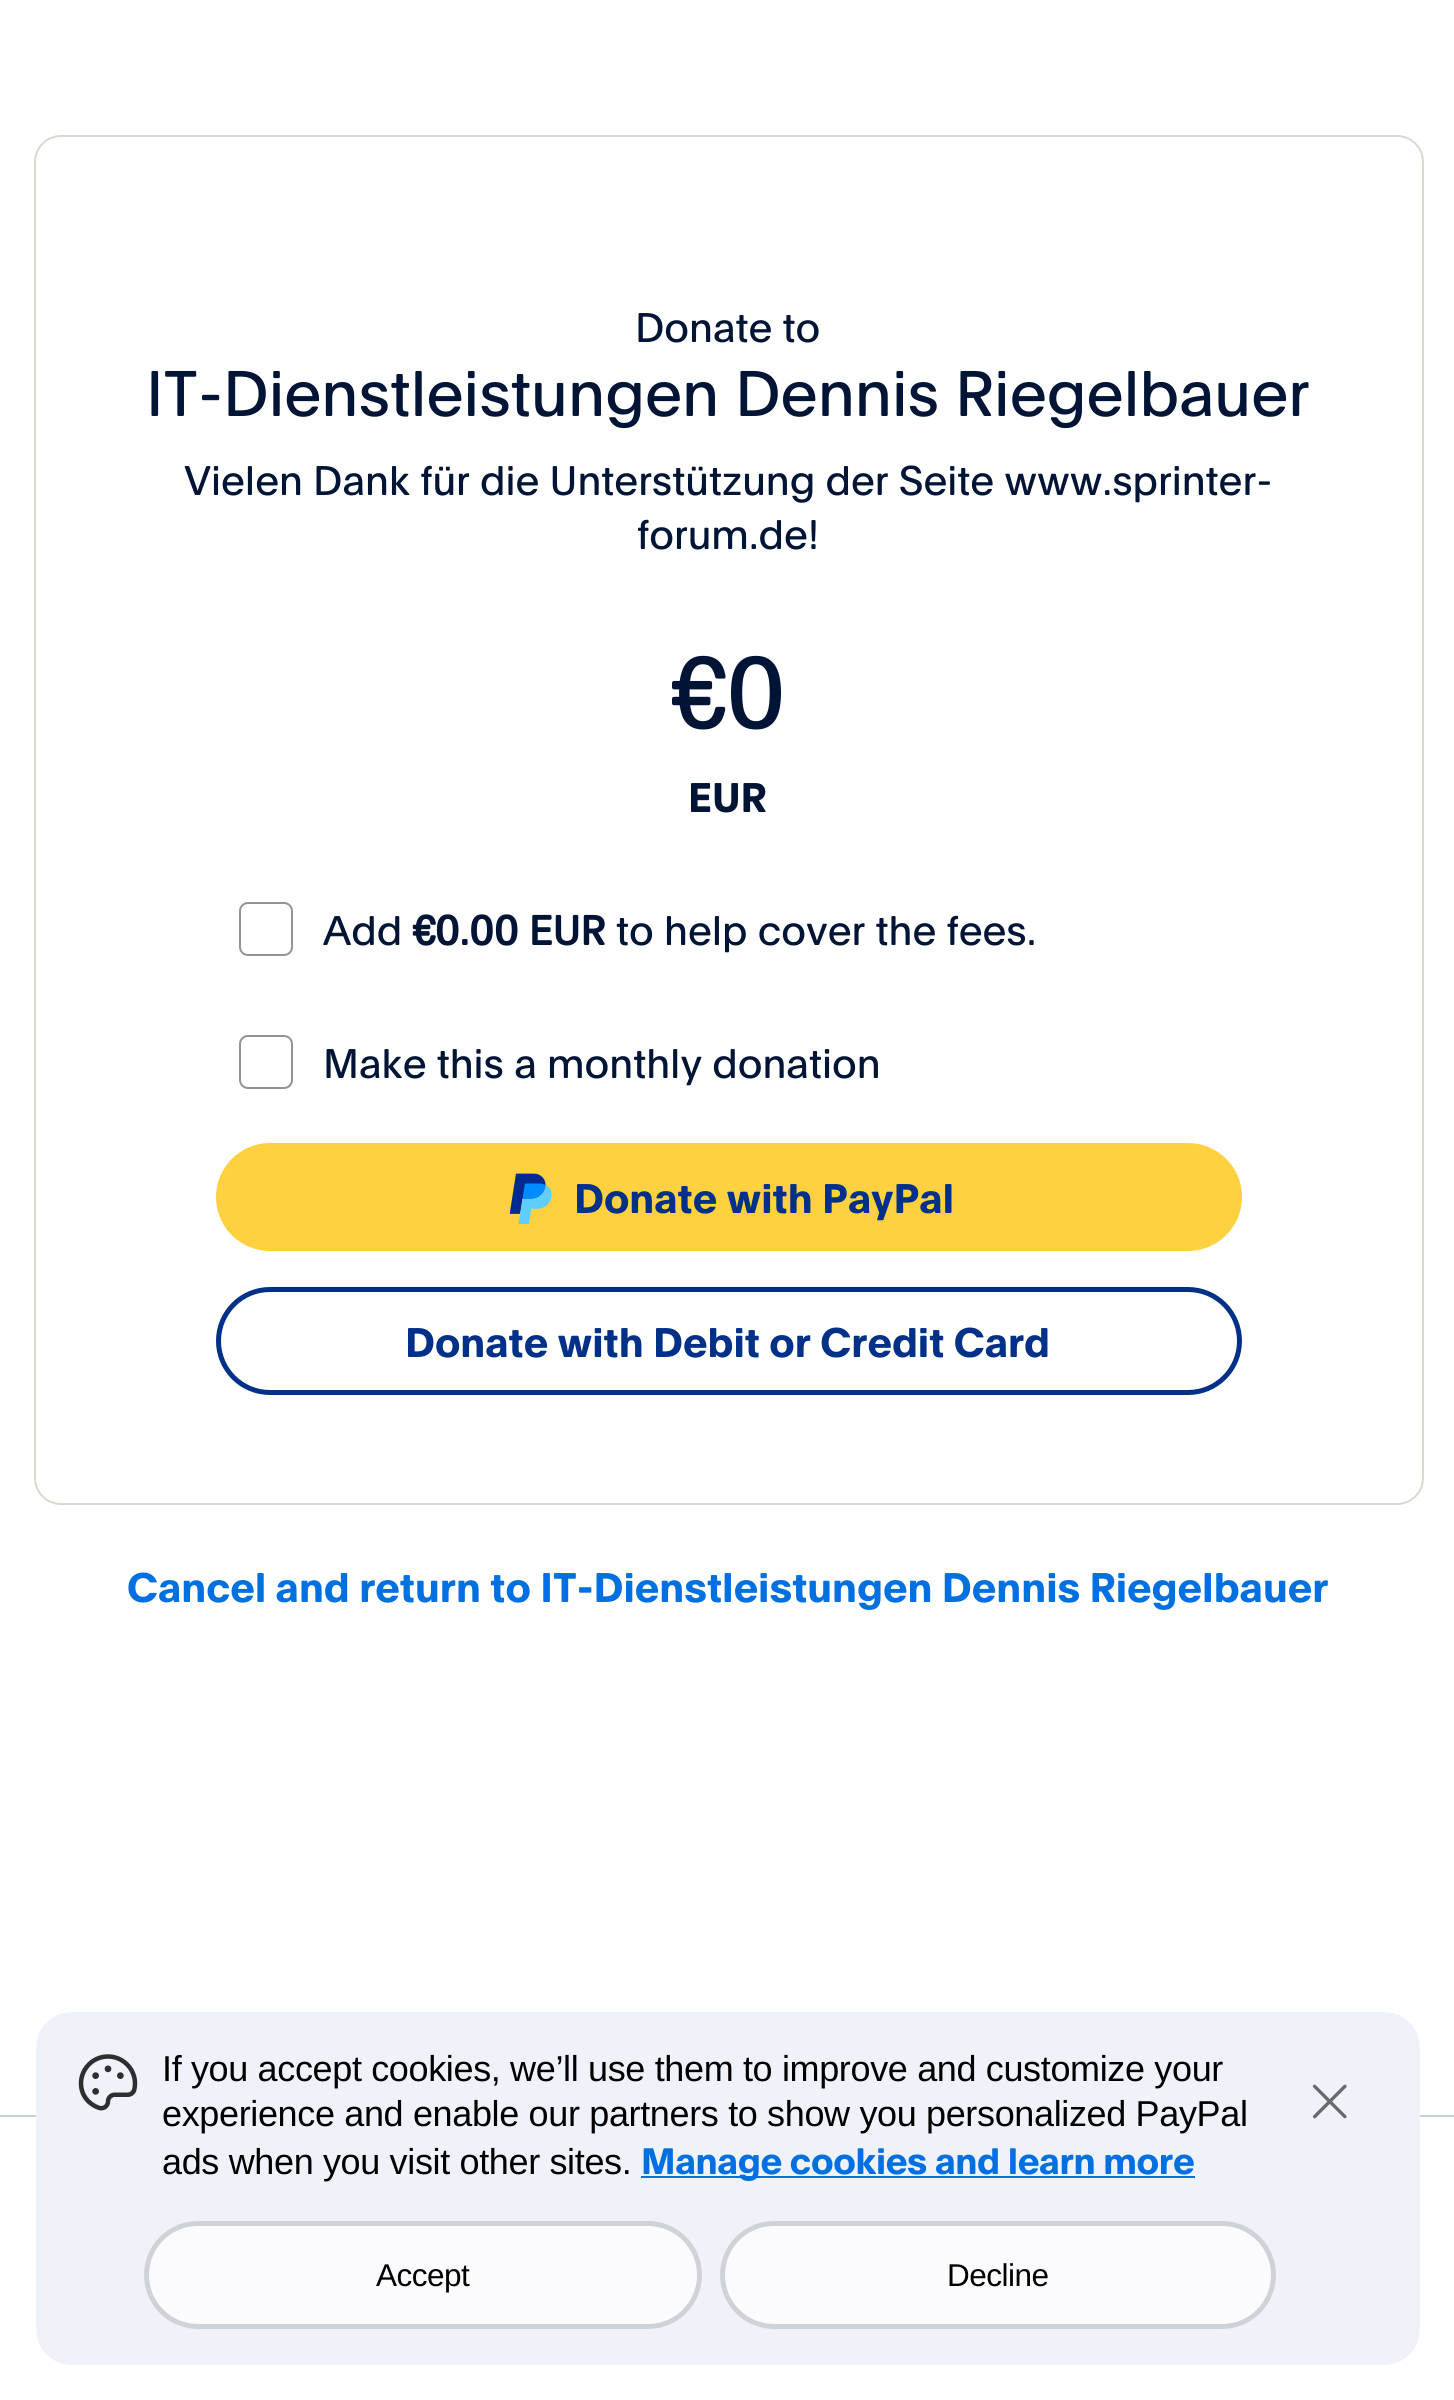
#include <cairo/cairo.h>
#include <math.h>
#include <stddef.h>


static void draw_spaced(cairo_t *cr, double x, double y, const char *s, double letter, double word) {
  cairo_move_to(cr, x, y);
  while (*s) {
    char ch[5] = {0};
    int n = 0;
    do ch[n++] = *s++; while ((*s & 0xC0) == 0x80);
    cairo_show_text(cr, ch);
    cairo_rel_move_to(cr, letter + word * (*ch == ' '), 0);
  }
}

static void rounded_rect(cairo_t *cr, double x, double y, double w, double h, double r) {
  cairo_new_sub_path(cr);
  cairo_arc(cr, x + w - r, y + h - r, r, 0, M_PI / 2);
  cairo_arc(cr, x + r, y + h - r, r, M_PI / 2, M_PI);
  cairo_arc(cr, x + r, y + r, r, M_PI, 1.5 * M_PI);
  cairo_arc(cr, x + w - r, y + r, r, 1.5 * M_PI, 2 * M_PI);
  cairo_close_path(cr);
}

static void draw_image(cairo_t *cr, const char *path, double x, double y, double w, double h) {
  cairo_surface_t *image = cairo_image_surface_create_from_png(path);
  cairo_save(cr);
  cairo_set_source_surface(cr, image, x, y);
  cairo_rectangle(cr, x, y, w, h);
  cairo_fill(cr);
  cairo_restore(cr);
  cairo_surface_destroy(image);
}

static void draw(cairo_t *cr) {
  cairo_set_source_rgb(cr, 1, 1, 1);
  cairo_paint(cr);
  rounded_rect(cr, 35, 136, 1388, 1368, 26);
  cairo_set_source_rgb(cr, 219 / 255.0, 216 / 255.0, 208 / 255.0);
  cairo_stroke(cr);
  rounded_rect(cr, 240, 903, 52, 52, 8);
  cairo_set_source_rgb(cr, 146 / 255.0, 148 / 255.0, 150 / 255.0);
  cairo_stroke(cr);
  rounded_rect(cr, 240, 1036, 52, 52, 8);
  cairo_stroke(cr);
  cairo_set_source_rgb(cr, 1, 209 / 255.0, 64 / 255.0);
  rounded_rect(cr, 218.5, 1145.5, 1021, 103, 51.5);
  cairo_fill_preserve(cr);
  cairo_set_line_width(cr, 5);
  cairo_stroke(cr);
  draw_image(cr, "images/1.png", 509, 1173, 43, 51);
  rounded_rect(cr, 218.5, 1289.5, 1021, 103, 51.5);
  cairo_set_source_rgb(cr, 0, 48 / 255.0, 135 / 255.0);
  cairo_stroke(cr);
  cairo_set_source_rgb(cr, 203 / 255.0, 210 / 255.0, 214 / 255.0);
  cairo_rectangle(cr, 0, 2115, 1454, 2);
  cairo_fill(cr);
  cairo_set_source_rgb(cr, 240 / 255.0, 242 / 255.0, 249 / 255.0);
  rounded_rect(cr, 36, 2012, 1384, 353, 36);
  cairo_fill(cr);
  draw_image(cr, "images/2.png", 78, 2054, 60, 57);
  cairo_set_source_rgb(cr, 0, 112 / 255.0, 224 / 255.0);
  cairo_rectangle(cr, 641, 2176, 554, 2);
  cairo_fill(cr);
  cairo_set_source_rgb(cr, 251 / 255.0, 251 / 255.0, 253 / 255.0);
  rounded_rect(cr, 146.5, 2223.5, 553, 103, 51.5);
  cairo_fill_preserve(cr);
  cairo_set_source_rgb(cr, 207 / 255.0, 211 / 255.0, 216 / 255.0);
  cairo_stroke(cr);
  cairo_set_source_rgb(cr, 251 / 255.0, 251 / 255.0, 253 / 255.0);
  rounded_rect(cr, 722.5, 2223.5, 551, 103, 51.5);
  cairo_fill_preserve(cr);
  cairo_set_source_rgb(cr, 207 / 255.0, 211 / 255.0, 216 / 255.0);
  cairo_stroke(cr);
  draw_image(cr, "images/3.png", 1312, 2084, 35, 35);
  cairo_select_font_face(cr, "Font", CAIRO_FONT_SLANT_NORMAL, CAIRO_FONT_WEIGHT_NORMAL);
  cairo_set_font_size(cr, 40.5);
  cairo_set_source_rgb(cr, 0, 20 / 255.0, 53 / 255.0);
  cairo_move_to(cr, 635, 342);
  cairo_show_text(cr, "Donate to");
  cairo_set_font_size(cr, 63);
  cairo_move_to(cr, 146, 416);
  cairo_show_text(cr, "IT-Dienstleistungen Dennis Riegelbauer");
  cairo_set_font_size(cr, 40.5);
  cairo_move_to(cr, 184, 495);
  cairo_show_text(cr, "Vielen Dank für die Unterstützung der Seite www.sprinter-");
  cairo_move_to(cr, 637, 549);
  cairo_show_text(cr, "forum.de!");
  cairo_set_font_size(cr, 99);
  cairo_move_to(cr, 670, 728);
  cairo_show_text(cr, "€0");
  cairo_select_font_face(cr, "Font", CAIRO_FONT_SLANT_NORMAL, CAIRO_FONT_WEIGHT_BOLD);
  cairo_set_font_size(cr, 40.5);
  cairo_move_to(cr, 688, 812);
  cairo_show_text(cr, "EUR");
  cairo_select_font_face(cr, "Font", CAIRO_FONT_SLANT_NORMAL, CAIRO_FONT_WEIGHT_NORMAL);
  cairo_move_to(cr, 323, 945);
  cairo_show_text(cr, "Add");
  cairo_select_font_face(cr, "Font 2", CAIRO_FONT_SLANT_NORMAL, CAIRO_FONT_WEIGHT_BOLD);
  cairo_move_to(cr, 412, 945);
  cairo_show_text(cr, "€0.00 EUR");
  cairo_select_font_face(cr, "Font", CAIRO_FONT_SLANT_NORMAL, CAIRO_FONT_WEIGHT_NORMAL);
  cairo_move_to(cr, 616, 945);
  cairo_show_text(cr, "to help cover the fees.");
  cairo_move_to(cr, 323, 1078);
  cairo_show_text(cr, "Make this a monthly donation");
  cairo_select_font_face(cr, "Font", CAIRO_FONT_SLANT_NORMAL, CAIRO_FONT_WEIGHT_BOLD);
  cairo_set_source_rgb(cr, 0, 48 / 255.0, 135 / 255.0);
  cairo_move_to(cr, 574, 1213);
  cairo_show_text(cr, "Donate with PayPal");
  cairo_move_to(cr, 405, 1357);
  cairo_show_text(cr, "Donate with Debit or Credit Card");
  cairo_set_source_rgb(cr, 0, 112 / 255.0, 224 / 255.0);
  cairo_move_to(cr, 127, 1602);
  cairo_show_text(cr, "Cancel and return to IT-Dienstleistungen Dennis Riegelbauer");
  cairo_select_font_face(cr, "Liberation Sans", CAIRO_FONT_SLANT_NORMAL, CAIRO_FONT_WEIGHT_NORMAL);
  cairo_set_font_size(cr, 36);
  cairo_set_source_rgb(cr, 0, 0, 0);
  draw_spaced(cr, 162, 2081, "If you accept cookies, we’ll use them to improve and customize your", -0.35, 0);
  draw_spaced(cr, 162, 2126, "experience and enable our partners to show you personalized PayPal", -0.35, 0);
  draw_spaced(cr, 162, 2174, "ads when you visit other sites.", -0.35, 0);
  cairo_select_font_face(cr, "Font", CAIRO_FONT_SLANT_NORMAL, CAIRO_FONT_WEIGHT_BOLD);
  cairo_set_source_rgb(cr, 0, 112 / 255.0, 224 / 255.0);
  draw_spaced(cr, 641, 2174, "Manage cookies and learn more", -0.35, 0);
  cairo_select_font_face(cr, "Liberation Sans", CAIRO_FONT_SLANT_NORMAL, CAIRO_FONT_WEIGHT_NORMAL);
  cairo_set_font_size(cr, 31.5);
  cairo_set_source_rgb(cr, 0, 0, 0);
  draw_spaced(cr, 376, 2286, "Accept", -0.5, 0);
  draw_spaced(cr, 947, 2286, "Decline", -0.5, 0);
}

int main(void) {
  cairo_surface_t *surface = cairo_image_surface_create(CAIRO_FORMAT_RGB24, 1454, 2400);
  cairo_t *cr = cairo_create(surface);
  cairo_font_options_t *options = cairo_font_options_create();
  cairo_font_options_set_hint_metrics(options, CAIRO_HINT_METRICS_OFF);
  cairo_font_options_set_hint_style(options, CAIRO_HINT_STYLE_NONE);
  cairo_set_font_options(cr, options);
  cairo_set_miter_limit(cr, 4);
  draw(cr);
  cairo_surface_write_to_png(surface, "out.png");
  cairo_font_options_destroy(options);
  cairo_destroy(cr);
  cairo_surface_destroy(surface);
  return 0;
}
